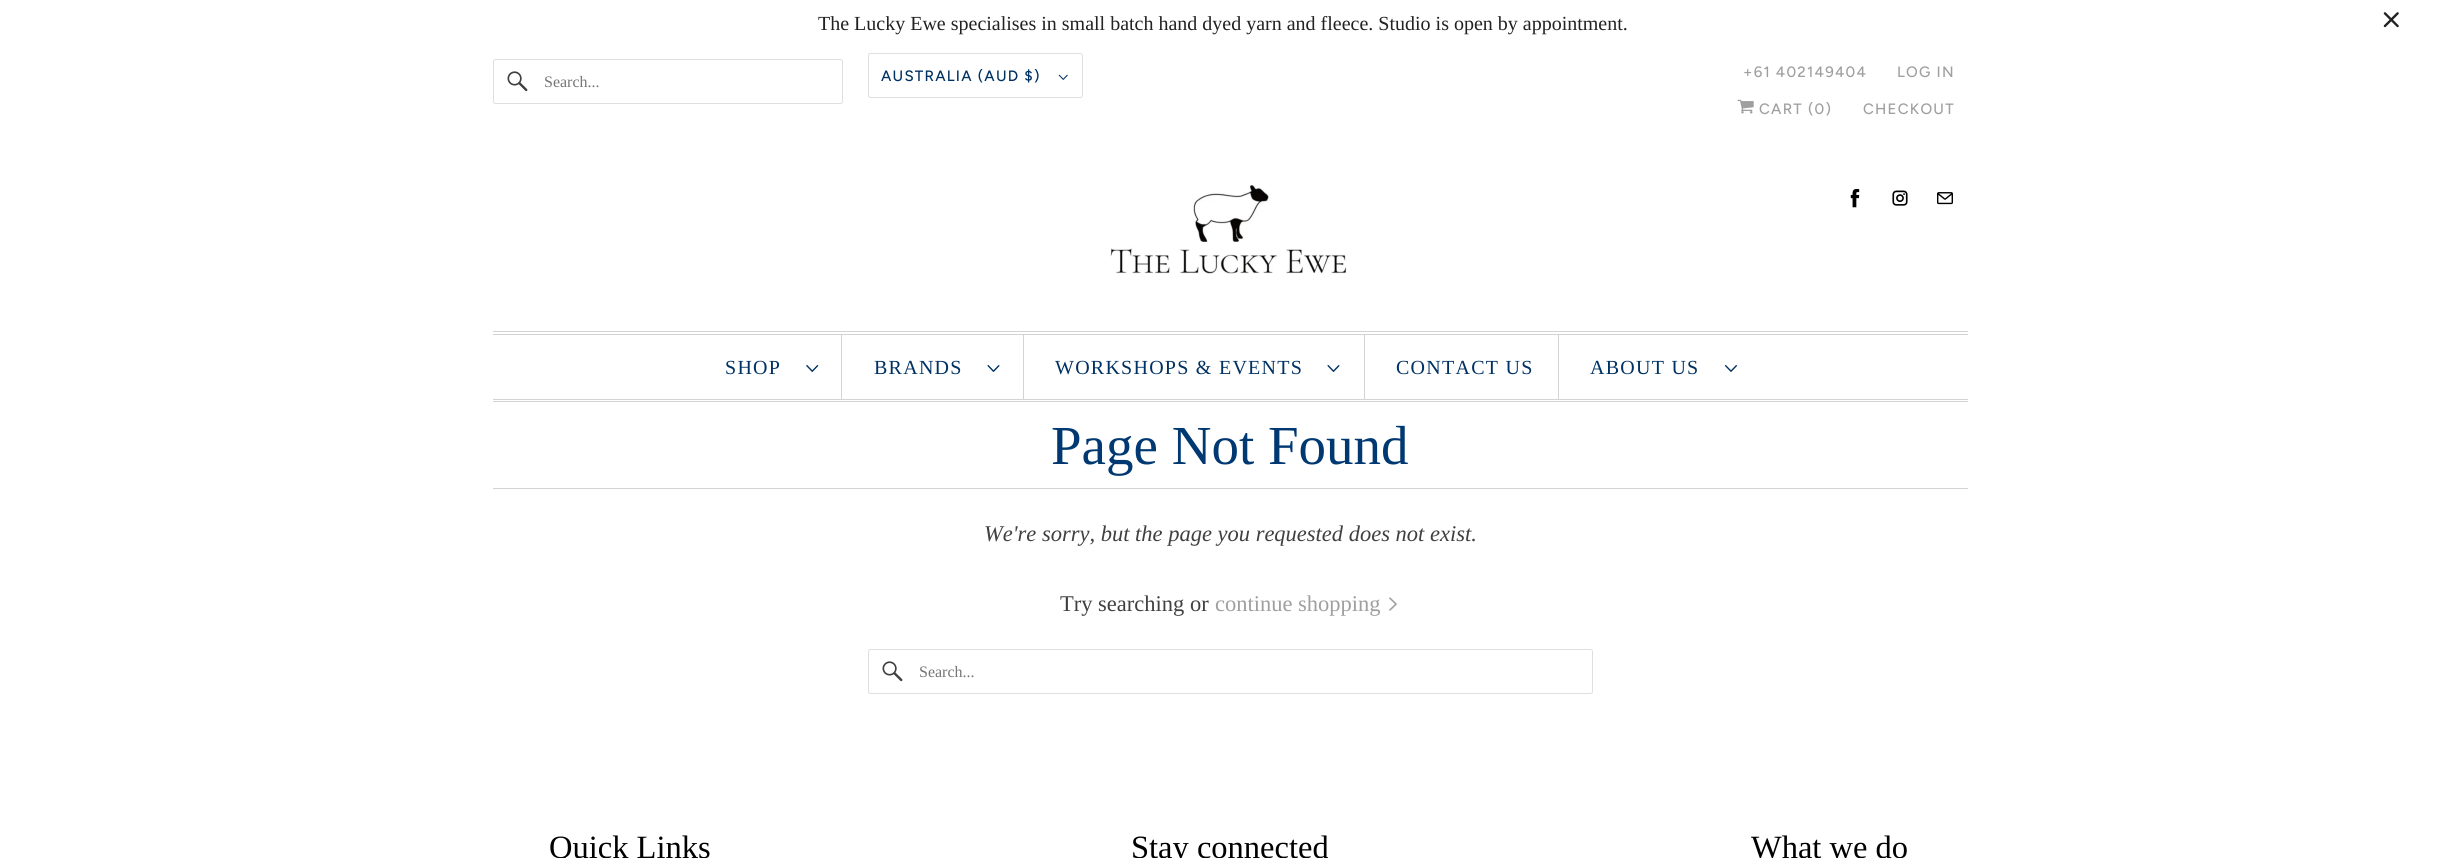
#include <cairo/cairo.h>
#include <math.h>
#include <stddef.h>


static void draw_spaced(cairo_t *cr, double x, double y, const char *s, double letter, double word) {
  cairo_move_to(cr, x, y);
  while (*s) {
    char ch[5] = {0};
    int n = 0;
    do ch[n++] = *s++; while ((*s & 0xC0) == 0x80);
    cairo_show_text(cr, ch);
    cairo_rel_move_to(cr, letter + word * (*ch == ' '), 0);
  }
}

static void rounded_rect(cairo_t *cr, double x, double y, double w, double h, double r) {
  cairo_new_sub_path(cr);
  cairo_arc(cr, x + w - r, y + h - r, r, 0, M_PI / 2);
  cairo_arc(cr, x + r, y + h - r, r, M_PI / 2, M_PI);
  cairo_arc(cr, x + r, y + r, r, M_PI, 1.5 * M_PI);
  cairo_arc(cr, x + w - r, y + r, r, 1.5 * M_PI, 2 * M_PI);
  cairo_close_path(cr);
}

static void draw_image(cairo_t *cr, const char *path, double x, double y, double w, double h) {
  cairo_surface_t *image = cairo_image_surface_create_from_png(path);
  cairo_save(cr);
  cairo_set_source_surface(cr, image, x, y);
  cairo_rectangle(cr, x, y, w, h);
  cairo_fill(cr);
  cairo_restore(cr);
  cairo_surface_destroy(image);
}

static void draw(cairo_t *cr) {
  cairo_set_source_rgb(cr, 1, 1, 1);
  cairo_paint(cr);
  draw_image(cr, "images/1.png", 2383, 12, 16, 16);
  rounded_rect(cr, 493.5, 59.5, 349, 44, 2);
  cairo_set_source_rgb(cr, 223 / 255.0, 223 / 255.0, 223 / 255.0);
  cairo_set_line_width(cr, 1);
  cairo_stroke(cr);
  draw_image(cr, "images/2.png", 507, 71, 21, 21);
  rounded_rect(cr, 868.5, 53.5, 214, 44, 2);
  cairo_stroke(cr);
  draw_image(cr, "images/3.png", 1058, 74, 10, 6);
  draw_image(cr, "images/4.png", 1737, 99, 17, 15);
  draw_image(cr, "images/5.png", 1110, 185, 237, 89);
  draw_image(cr, "images/6.png", 1850, 189, 10, 19);
  draw_image(cr, "images/7.png", 1892, 190, 16, 16);
  draw_image(cr, "images/8.png", 1937, 192, 16, 13);
  cairo_set_source_rgb(cr, 211 / 255.0, 211 / 255.0, 211 / 255.0);
  cairo_rectangle(cr, 493, 331, 1475, 1);
  cairo_fill(cr);
  cairo_rectangle(cr, 493, 334, 1475, 1);
  cairo_fill(cr);
  cairo_rectangle(cr, 493, 399, 1475, 1);
  cairo_fill(cr);
  cairo_rectangle(cr, 493, 401, 1475, 1);
  cairo_fill(cr);
  cairo_rectangle(cr, 841, 335, 1, 64);
  cairo_fill(cr);
  draw_image(cr, "images/9.png", 806, 365, 13, 7);
  cairo_rectangle(cr, 1023, 335, 1, 64);
  cairo_fill(cr);
  draw_image(cr, "images/10.png", 987, 365, 13, 7);
  cairo_rectangle(cr, 1364, 335, 1, 64);
  cairo_fill(cr);
  draw_image(cr, "images/10.png", 1327, 365, 13, 7);
  cairo_rectangle(cr, 1558, 335, 1, 64);
  cairo_fill(cr);
  draw_image(cr, "images/11.png", 1725, 365, 12, 7);
  cairo_rectangle(cr, 493, 488, 1475, 1);
  cairo_fill(cr);
  draw_image(cr, "images/12.png", 1389, 597, 8, 14);
  rounded_rect(cr, 868.5, 649.5, 724, 44, 2);
  cairo_set_source_rgb(cr, 223 / 255.0, 223 / 255.0, 223 / 255.0);
  cairo_stroke(cr);
  draw_image(cr, "images/2.png", 882, 661, 21, 21);
  cairo_select_font_face(cr, "Liberation Serif", CAIRO_FONT_SLANT_NORMAL, CAIRO_FONT_WEIGHT_NORMAL);
  cairo_set_font_size(cr, 20);
  cairo_set_source_rgb(cr, 34 / 255.0, 34 / 255.0, 34 / 255.0);
  cairo_move_to(cr, 818, 30);
  cairo_show_text(cr, "The Lucky Ewe specialises in small batch hand dyed yarn and fleece. Studio is open by appointment.");
  cairo_set_font_size(cr, 16);
  cairo_set_source_rgb(cr, 117 / 255.0, 117 / 255.0, 117 / 255.0);
  cairo_move_to(cr, 544, 87);
  cairo_show_text(cr, "Search...");
  cairo_select_font_face(cr, "Figtree Medium", CAIRO_FONT_SLANT_NORMAL, CAIRO_FONT_WEIGHT_NORMAL);
  cairo_set_font_size(cr, 15);
  cairo_set_source_rgb(cr, 0, 49 / 255.0, 99 / 255.0);
  draw_spaced(cr, 881, 81, "AUSTRALIA (AUD $)", 1.25, 0);
  cairo_set_source_rgb(cr, 159 / 255.0, 159 / 255.0, 159 / 255.0);
  draw_spaced(cr, 1743, 77, "+61 402149404", 1.25, 0);
  draw_spaced(cr, 1897, 77, "LOG IN", 1.25, 0);
  draw_spaced(cr, 1759, 114, "CART (0)", 1.25, 0);
  draw_spaced(cr, 1863, 114, "CHECKOUT", 1.25, 0);
  cairo_select_font_face(cr, "Liberation Serif", CAIRO_FONT_SLANT_NORMAL, CAIRO_FONT_WEIGHT_NORMAL);
  cairo_set_font_size(cr, 20);
  cairo_set_source_rgb(cr, 0, 49 / 255.0, 99 / 255.0);
  draw_spaced(cr, 725, 374, "SHOP", 1.25, 0);
  draw_spaced(cr, 874, 374, "BRANDS", 1.25, 0);
  draw_spaced(cr, 1055, 374, "WORKSHOPS & EVENTS", 1.25, 0);
  draw_spaced(cr, 1396, 374, "CONTACT US", 1.25, 0);
  draw_spaced(cr, 1590, 374, "ABOUT US", 1.25, 0);
  cairo_set_font_size(cr, 55);
  cairo_set_source_rgb(cr, 0, 56 / 255.0, 114 / 255.0);
  cairo_move_to(cr, 1051, 464);
  cairo_show_text(cr, "Page Not Found");
  cairo_select_font_face(cr, "Liberation Serif", CAIRO_FONT_SLANT_ITALIC, CAIRO_FONT_WEIGHT_NORMAL);
  cairo_set_font_size(cr, 22.5);
  cairo_set_source_rgb(cr, 64 / 255.0, 64 / 255.0, 64 / 255.0);
  cairo_move_to(cr, 984, 541);
  cairo_show_text(cr, "We're sorry, but the page you requested does not exist.");
  cairo_select_font_face(cr, "Liberation Serif", CAIRO_FONT_SLANT_NORMAL, CAIRO_FONT_WEIGHT_NORMAL);
  cairo_move_to(cr, 1060, 611);
  cairo_show_text(cr, "Try searching or");
  cairo_set_source_rgb(cr, 159 / 255.0, 159 / 255.0, 159 / 255.0);
  cairo_move_to(cr, 1215, 611);
  cairo_show_text(cr, "continue shopping");
  cairo_set_font_size(cr, 16);
  cairo_set_source_rgb(cr, 117 / 255.0, 117 / 255.0, 117 / 255.0);
  cairo_move_to(cr, 919, 677);
  cairo_show_text(cr, "Search...");
  cairo_set_font_size(cr, 32.5);
  cairo_set_source_rgb(cr, 0, 0, 0);
  cairo_move_to(cr, 549, 858);
  cairo_show_text(cr, "Quick Links");
  cairo_move_to(cr, 1131, 858);
  cairo_show_text(cr, "Stay connected");
  cairo_move_to(cr, 1751, 858);
  cairo_show_text(cr, "What we do");
}

int main(void) {
  cairo_surface_t *surface = cairo_image_surface_create(CAIRO_FORMAT_RGB24, 2460, 858);
  cairo_t *cr = cairo_create(surface);
  cairo_font_options_t *options = cairo_font_options_create();
  cairo_font_options_set_hint_metrics(options, CAIRO_HINT_METRICS_OFF);
  cairo_font_options_set_hint_style(options, CAIRO_HINT_STYLE_NONE);
  cairo_set_font_options(cr, options);
  cairo_set_miter_limit(cr, 4);
  draw(cr);
  cairo_surface_write_to_png(surface, "out.png");
  cairo_font_options_destroy(options);
  cairo_destroy(cr);
  cairo_surface_destroy(surface);
  return 0;
}
